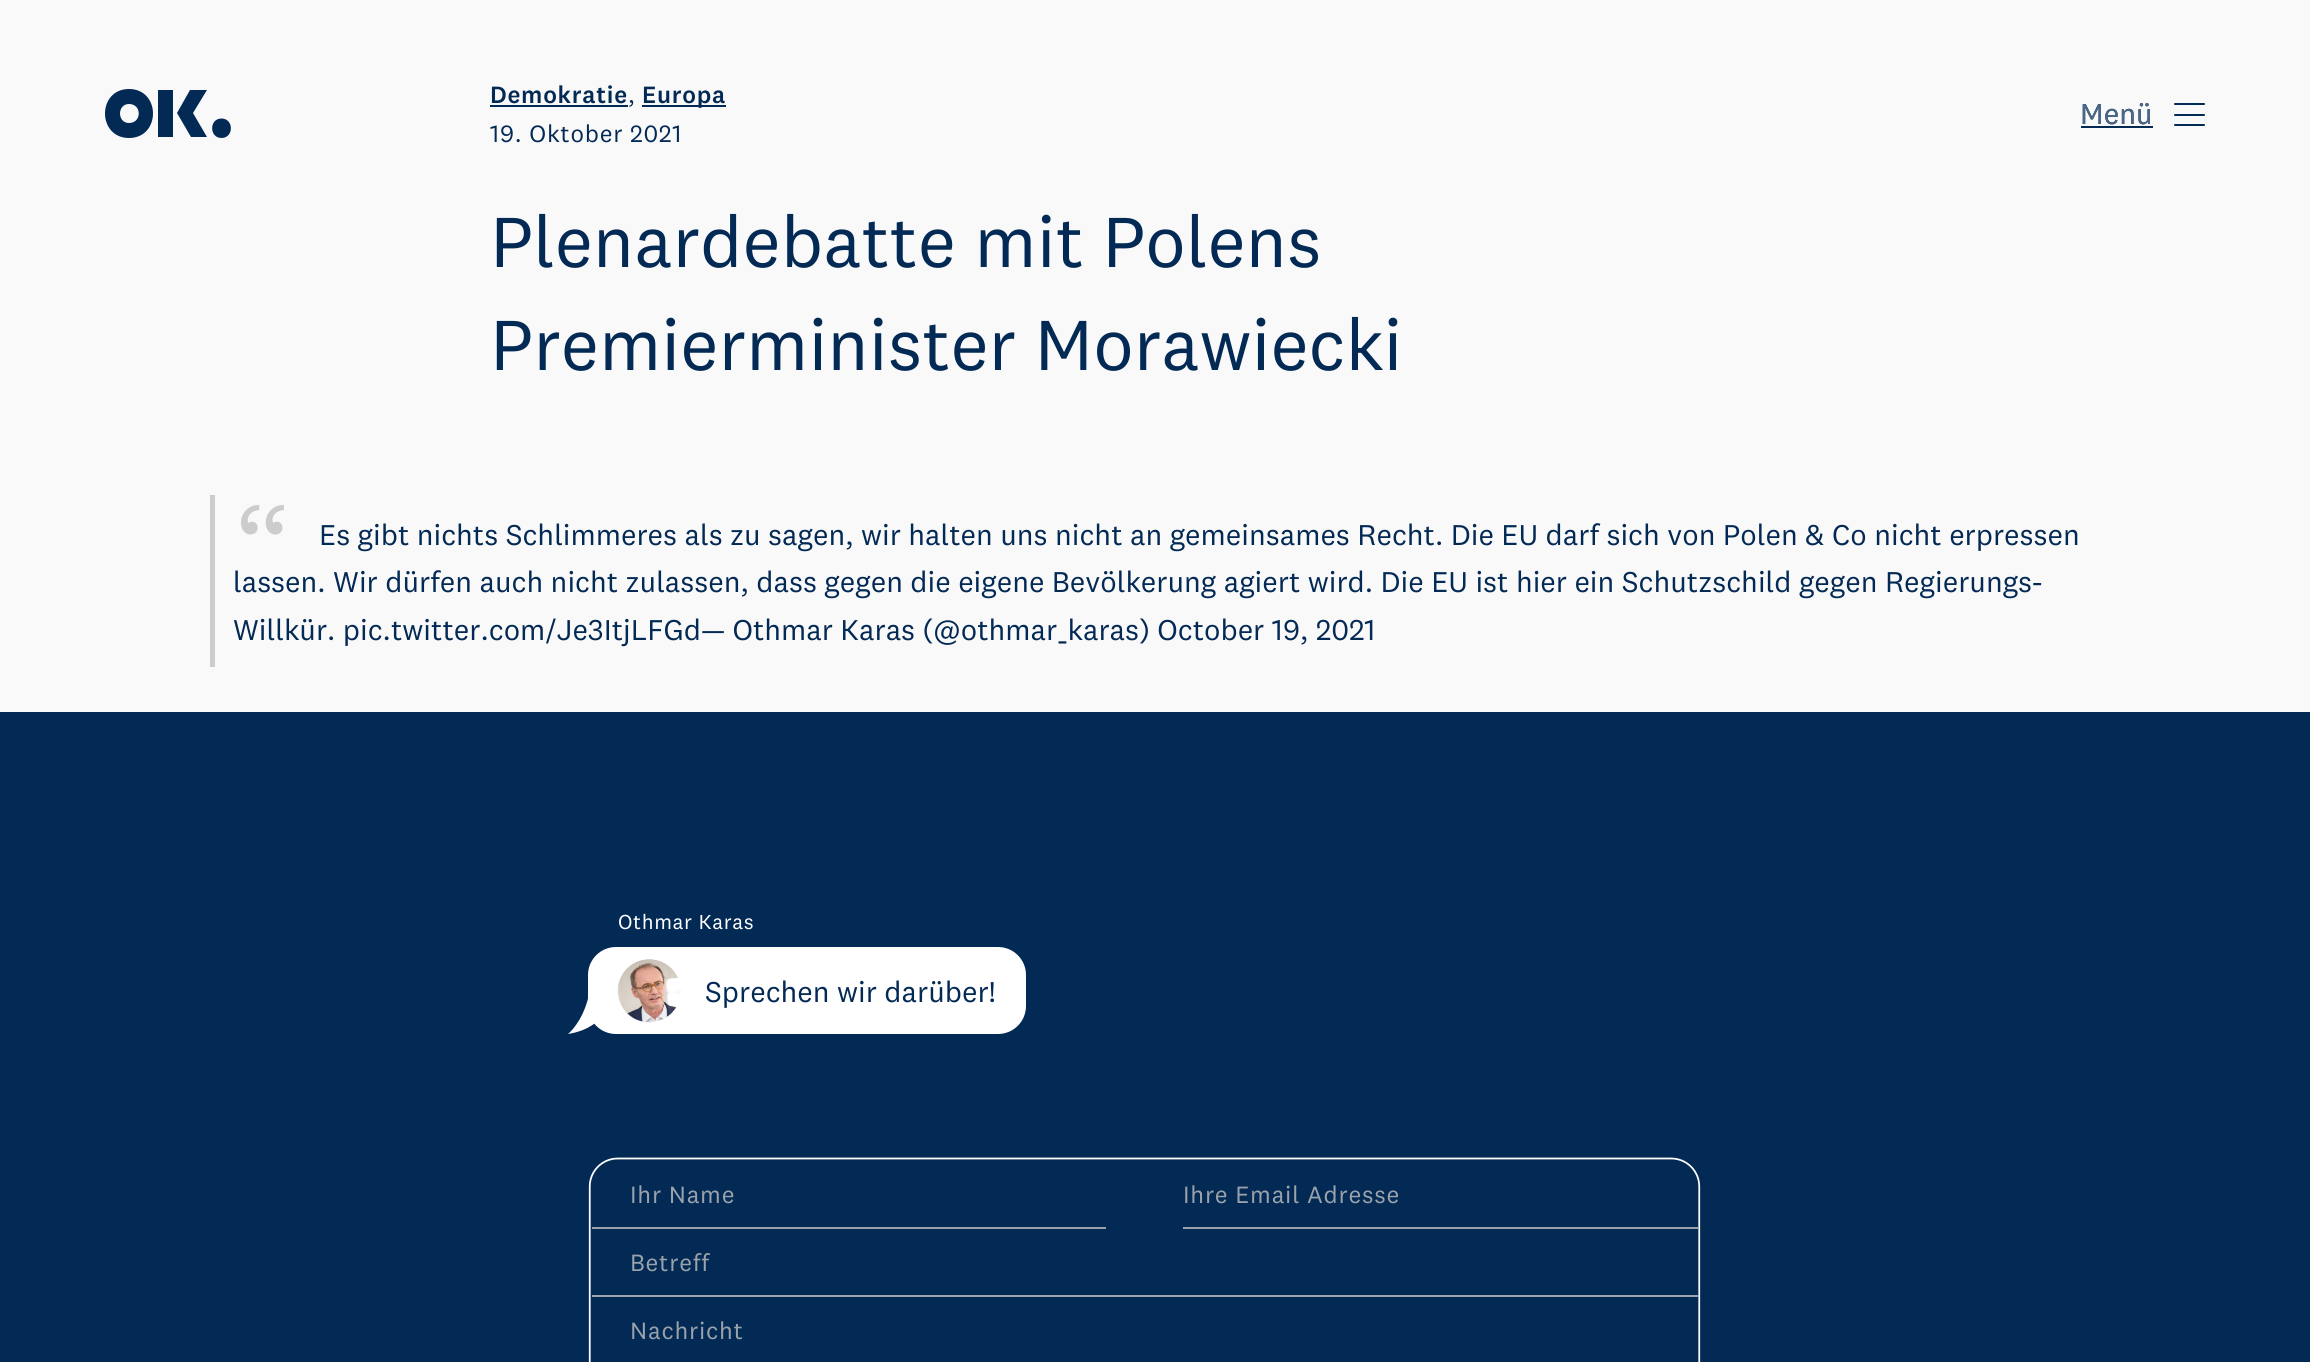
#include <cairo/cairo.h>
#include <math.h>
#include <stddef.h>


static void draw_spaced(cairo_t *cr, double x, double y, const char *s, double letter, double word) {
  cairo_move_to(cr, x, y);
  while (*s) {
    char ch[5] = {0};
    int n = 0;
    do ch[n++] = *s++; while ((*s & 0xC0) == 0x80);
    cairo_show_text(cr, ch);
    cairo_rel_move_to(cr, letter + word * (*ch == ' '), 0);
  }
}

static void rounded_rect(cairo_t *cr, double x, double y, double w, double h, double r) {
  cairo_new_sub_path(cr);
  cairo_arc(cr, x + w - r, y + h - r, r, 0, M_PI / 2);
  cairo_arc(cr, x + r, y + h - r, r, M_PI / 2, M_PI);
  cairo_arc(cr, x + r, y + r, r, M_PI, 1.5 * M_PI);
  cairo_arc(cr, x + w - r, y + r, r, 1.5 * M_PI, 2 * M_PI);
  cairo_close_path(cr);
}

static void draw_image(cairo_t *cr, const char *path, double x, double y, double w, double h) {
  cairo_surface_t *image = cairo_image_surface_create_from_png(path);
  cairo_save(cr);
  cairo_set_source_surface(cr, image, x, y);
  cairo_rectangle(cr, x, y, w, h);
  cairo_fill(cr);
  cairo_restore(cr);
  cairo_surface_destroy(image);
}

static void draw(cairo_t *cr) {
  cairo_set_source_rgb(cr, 249 / 255.0, 249 / 255.0, 249 / 255.0);
  cairo_paint(cr);
  cairo_set_source_rgb(cr, 3 / 255.0, 41 / 255.0, 85 / 255.0);
  cairo_rectangle(cr, 490, 105, 138, 2);
  cairo_fill(cr);
  cairo_rectangle(cr, 642, 105, 84, 2);
  cairo_fill(cr);
  cairo_new_path(cr);
  cairo_move_to(cr, 129, 138);
  cairo_curve_to(cr, 97, 138, 97, 89, 129, 89);
  cairo_curve_to(cr, 161, 89, 161, 138, 129, 138);
  cairo_close_path(cr);
  cairo_move_to(cr, 129, 104);
  cairo_curve_to(cr, 117, 104, 117, 123, 129, 123);
  cairo_curve_to(cr, 142, 123, 142, 104, 129, 104);
  cairo_close_path(cr);
  cairo_fill(cr);
  cairo_rectangle(cr, 158, 90, 15, 47);
  cairo_fill(cr);
  cairo_new_path(cr);
  cairo_move_to(cr, 193, 113);
  cairo_line_to(cr, 207, 90);
  cairo_line_to(cr, 190, 90);
  cairo_line_to(cr, 177, 113);
  cairo_line_to(cr, 191, 137);
  cairo_line_to(cr, 207, 137);
  cairo_close_path(cr);
  cairo_move_to(cr, 221.5, 138);
  cairo_curve_to(cr, 234, 138, 234, 118.5, 221.5, 118.5);
  cairo_curve_to(cr, 209, 118.5, 209, 138, 221.5, 138);
  cairo_close_path(cr);
  cairo_fill(cr);
  cairo_rectangle(cr, 2081, 126, 72, 2);
  cairo_fill(cr);
  rounded_rect(cr, 2174, 114, 31, 2, 1);
  cairo_fill(cr);
  rounded_rect(cr, 2174, 103, 31, 2, 1);
  cairo_fill(cr);
  rounded_rect(cr, 2174, 124, 31, 2, 1);
  cairo_fill(cr);
  cairo_set_source_rgb(cr, 204 / 255.0, 204 / 255.0, 204 / 255.0);
  cairo_rectangle(cr, 210, 495, 5, 172);
  cairo_fill(cr);
  cairo_set_source_rgb(cr, 3 / 255.0, 41 / 255.0, 85 / 255.0);
  cairo_rectangle(cr, 0, 712, 2310, 650);
  cairo_fill(cr);
  cairo_set_source_rgb(cr, 1, 1, 1);
  rounded_rect(cr, 588, 947, 438, 87, 28);
  cairo_fill(cr);
  cairo_new_path(cr);
  cairo_move_to(cr, 568, 1034);
  cairo_curve_to(cr, 573, 1030, 586, 1015, 590, 989);
  cairo_curve_to(cr, 596, 995, 606, 1009, 599, 1019);
  cairo_curve_to(cr, 591, 1029, 575, 1033, 568, 1034);
  cairo_close_path(cr);
  cairo_fill(cr);
  draw_image(cr, "images/1.png", 617, 959, 64, 64);
  draw_image(cr, "images/2.png", 588, 1157, 1113, 205);
  cairo_set_source_rgb(cr, 154 / 255.0, 163 / 255.0, 172 / 255.0);
  cairo_rectangle(cr, 592, 1227, 514, 2);
  cairo_fill(cr);
  cairo_rectangle(cr, 1183, 1227, 515, 2);
  cairo_fill(cr);
  cairo_rectangle(cr, 592, 1295, 1106, 2);
  cairo_fill(cr);
  cairo_select_font_face(cr, "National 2 Medium", CAIRO_FONT_SLANT_NORMAL, CAIRO_FONT_WEIGHT_NORMAL);
  cairo_set_font_size(cr, 24.5);
  cairo_set_source_rgb(cr, 3 / 255.0, 41 / 255.0, 85 / 255.0);
  draw_spaced(cr, 490, 103, "Demokratie", 0.75, 0);
  cairo_select_font_face(cr, "National 2", CAIRO_FONT_SLANT_NORMAL, CAIRO_FONT_WEIGHT_NORMAL);
  draw_spaced(cr, 628, 103, ",", 0.75, 0);
  cairo_select_font_face(cr, "National 2 Medium", CAIRO_FONT_SLANT_NORMAL, CAIRO_FONT_WEIGHT_NORMAL);
  draw_spaced(cr, 642, 103, "Europa", 0.75, 0);
  cairo_select_font_face(cr, "National 2", CAIRO_FONT_SLANT_NORMAL, CAIRO_FONT_WEIGHT_NORMAL);
  draw_spaced(cr, 490, 142, "19. Oktober 2021", 0.75, 0);
  cairo_set_font_size(cr, 73.5);
  cairo_move_to(cr, 490, 267);
  cairo_show_text(cr, "Plenardebatte mit Polens");
  cairo_move_to(cr, 490, 370);
  cairo_show_text(cr, "Premierminister Morawiecki");
  cairo_set_font_size(cr, 29.75);
  cairo_move_to(cr, 2080, 124);
  cairo_show_text(cr, "Menü");
  cairo_set_font_size(cr, 119);
  cairo_set_source_rgb(cr, 204 / 255.0, 204 / 255.0, 204 / 255.0);
  cairo_move_to(cr, 233, 592);
  cairo_show_text(cr, "“");
  cairo_set_font_size(cr, 29.75);
  cairo_set_source_rgb(cr, 3 / 255.0, 41 / 255.0, 85 / 255.0);
  cairo_move_to(cr, 319, 545);
  cairo_show_text(cr, "Es gibt nichts Schlimmeres als zu sagen, wir halten uns nicht an gemeinsames Recht. Die EU darf sich von Polen & Co nicht erpressen");
  cairo_move_to(cr, 233, 592);
  cairo_show_text(cr, "lassen. Wir dürfen auch nicht zulassen, dass gegen die eigene Bevölkerung agiert wird. Die EU ist hier ein Schutzschild gegen Regierungs-");
  cairo_move_to(cr, 233, 640);
  cairo_show_text(cr, "Willkür. pic.twitter.com/Je3ItjLFGd— Othmar Karas (@othmar_karas) October 19, 2021");
  cairo_set_source_rgb(cr, 76 / 255.0, 103 / 255.0, 134 / 255.0);
  cairo_move_to(cr, 2080, 124);
  cairo_show_text(cr, "Menü");
  cairo_set_font_size(cr, 21);
  cairo_set_source_rgb(cr, 1, 1, 1);
  draw_spaced(cr, 618, 929, "Othmar Karas", 0.6, 0);
  cairo_set_font_size(cr, 29.75);
  cairo_set_source_rgb(cr, 3 / 255.0, 41 / 255.0, 85 / 255.0);
  cairo_move_to(cr, 705, 1002);
  cairo_show_text(cr, "Sprechen wir darüber!");
  cairo_set_font_size(cr, 24.5);
  cairo_set_source_rgb(cr, 154 / 255.0, 163 / 255.0, 172 / 255.0);
  draw_spaced(cr, 630, 1203, "Ihr Name", 0.75, 0);
  draw_spaced(cr, 1183, 1203, "Ihre Email Adresse", 0.75, 0);
  draw_spaced(cr, 630, 1271, "Betreff", 0.75, 0);
  draw_spaced(cr, 630, 1339, "Nachricht", 0.75, 0);
}

int main(void) {
  cairo_surface_t *surface = cairo_image_surface_create(CAIRO_FORMAT_RGB24, 2310, 1362);
  cairo_t *cr = cairo_create(surface);
  cairo_font_options_t *options = cairo_font_options_create();
  cairo_font_options_set_hint_metrics(options, CAIRO_HINT_METRICS_OFF);
  cairo_font_options_set_hint_style(options, CAIRO_HINT_STYLE_NONE);
  cairo_set_font_options(cr, options);
  cairo_set_miter_limit(cr, 4);
  draw(cr);
  cairo_surface_write_to_png(surface, "out.png");
  cairo_font_options_destroy(options);
  cairo_destroy(cr);
  cairo_surface_destroy(surface);
  return 0;
}
